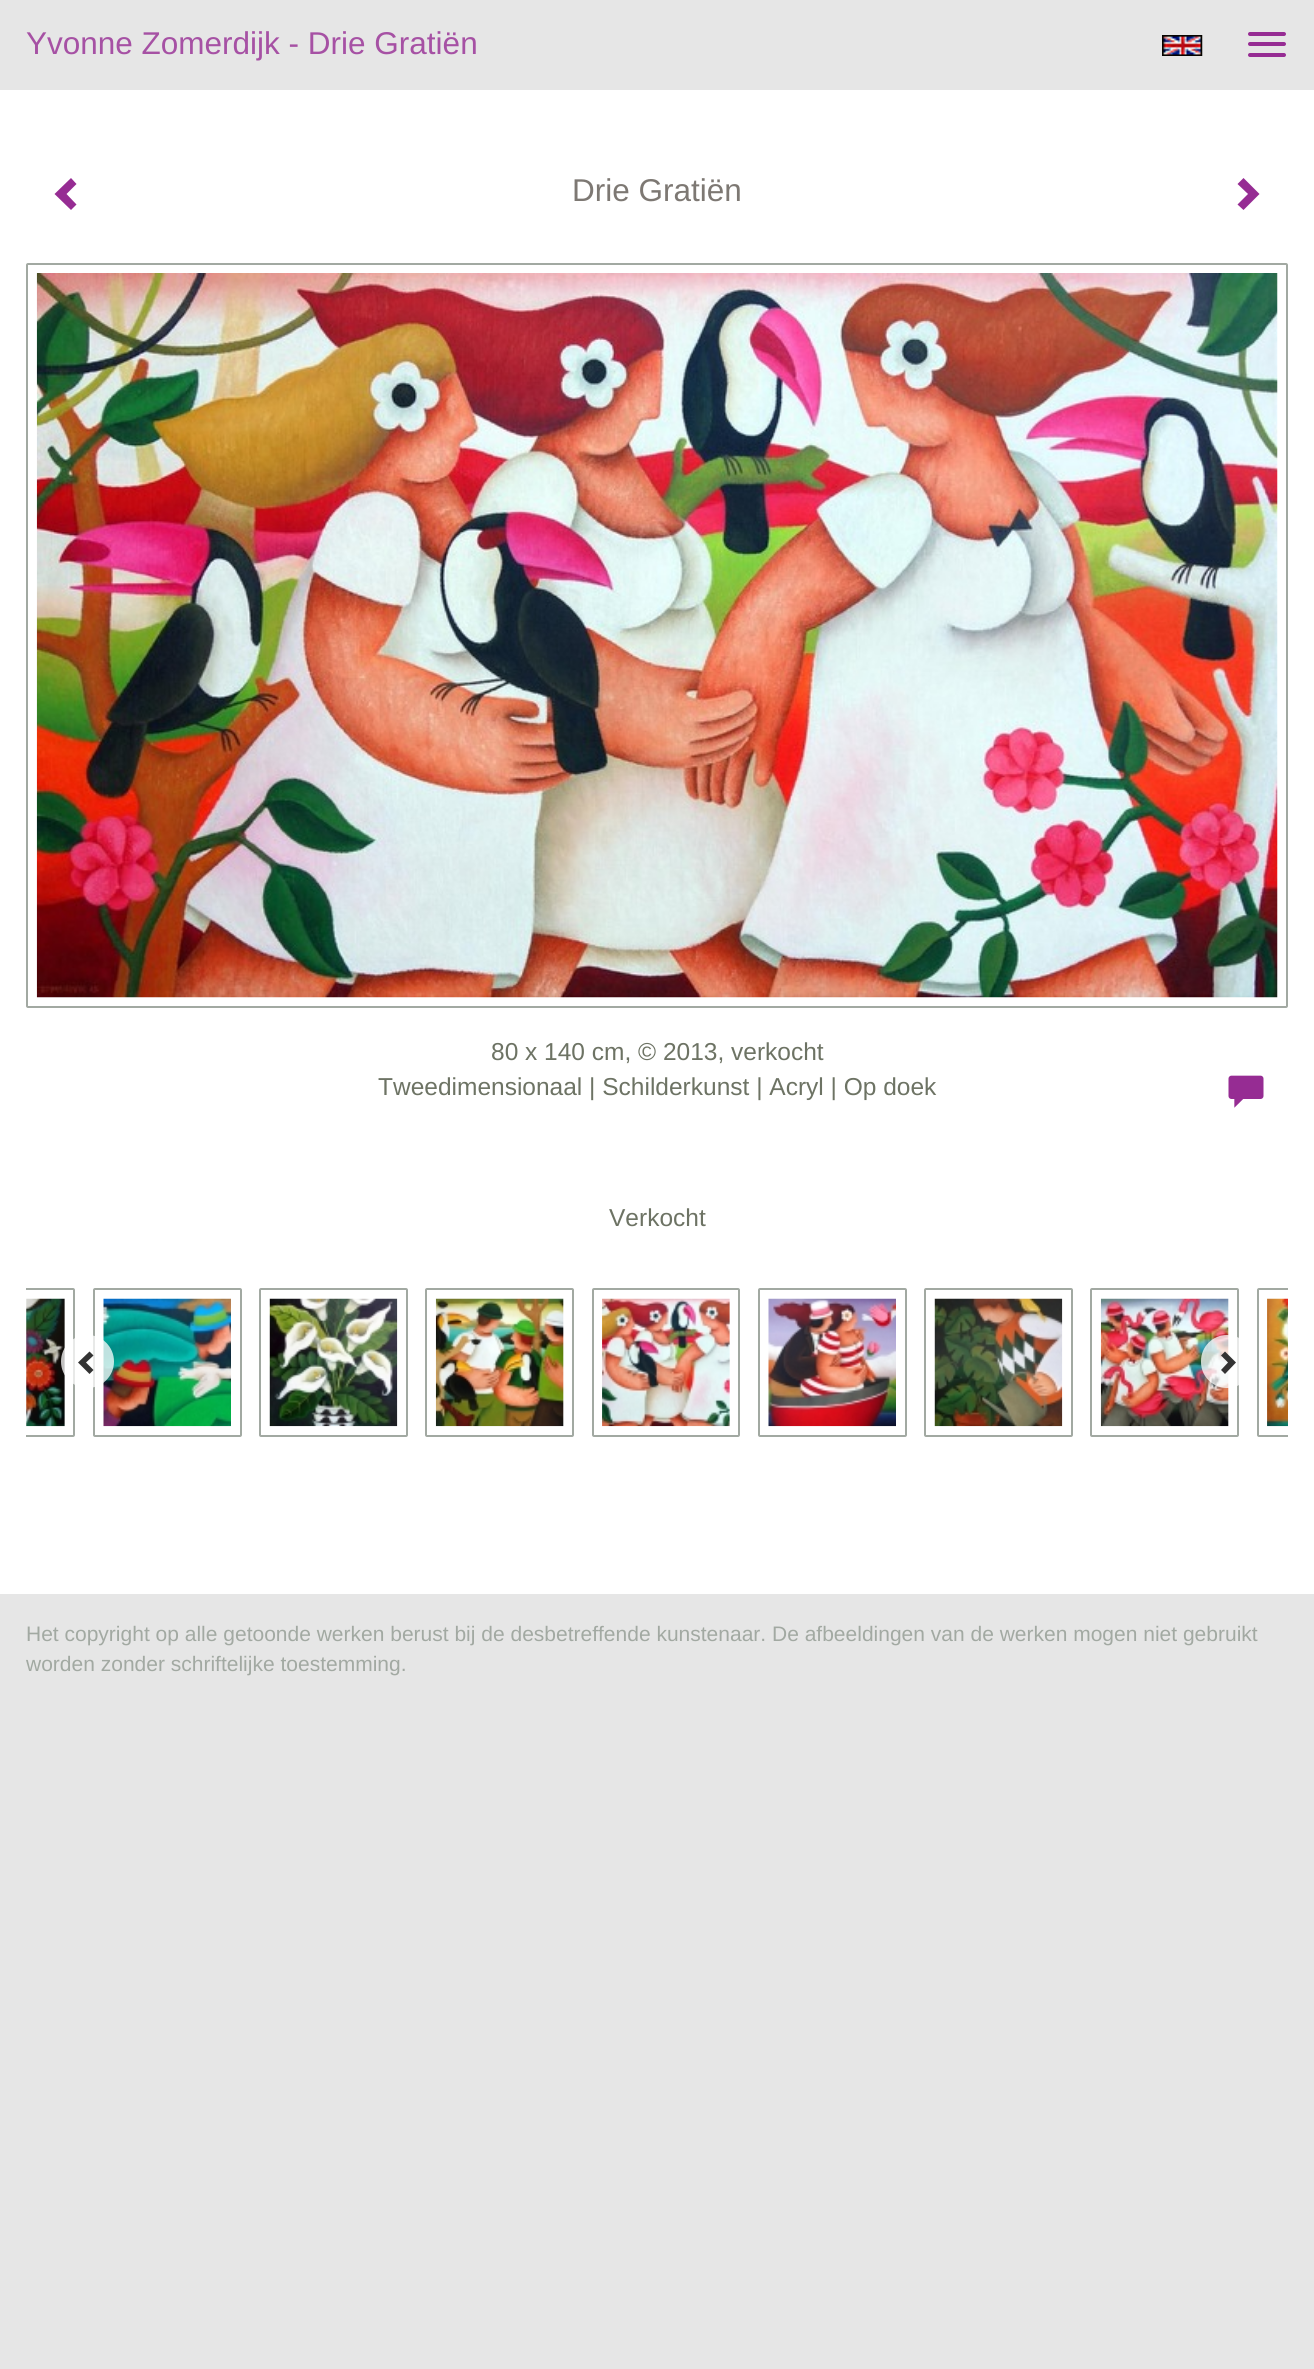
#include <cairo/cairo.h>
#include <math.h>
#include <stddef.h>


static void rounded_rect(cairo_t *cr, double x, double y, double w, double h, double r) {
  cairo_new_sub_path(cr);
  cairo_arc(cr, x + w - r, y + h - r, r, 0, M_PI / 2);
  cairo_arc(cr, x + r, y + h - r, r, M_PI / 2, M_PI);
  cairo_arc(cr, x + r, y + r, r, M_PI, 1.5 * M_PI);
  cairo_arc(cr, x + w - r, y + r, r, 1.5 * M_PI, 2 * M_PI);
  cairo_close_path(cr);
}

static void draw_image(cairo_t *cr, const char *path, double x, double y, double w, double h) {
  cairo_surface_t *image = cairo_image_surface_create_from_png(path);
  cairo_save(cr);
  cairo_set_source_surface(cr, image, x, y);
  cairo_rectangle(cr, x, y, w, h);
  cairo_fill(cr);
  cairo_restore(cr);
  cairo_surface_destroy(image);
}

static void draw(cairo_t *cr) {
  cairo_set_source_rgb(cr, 230 / 255.0, 230 / 255.0, 230 / 255.0);
  cairo_paint(cr);
  cairo_set_source_rgb(cr, 150 / 255.0, 44 / 255.0, 147 / 255.0);
  rounded_rect(cr, 1248, 32, 38, 4, 2);
  cairo_fill(cr);
  rounded_rect(cr, 1248, 42, 38, 4, 2);
  cairo_fill(cr);
  rounded_rect(cr, 1248, 53, 38, 4, 2);
  cairo_fill(cr);
  draw_image(cr, "images/1.png", 1162, 35, 41, 21);
  cairo_set_source_rgb(cr, 1, 1, 1);
  cairo_rectangle(cr, 0, 90, 1314, 1504);
  cairo_fill(cr);
  cairo_set_source_rgb(cr, 150 / 255.0, 44 / 255.0, 147 / 255.0);
  cairo_new_path(cr);
  cairo_move_to(cr, 76.5, 184);
  cairo_line_to(cr, 66.5, 194);
  cairo_line_to(cr, 76.5, 204.5);
  cairo_line_to(cr, 71, 210);
  cairo_line_to(cr, 54.5, 194);
  cairo_line_to(cr, 71, 178);
  cairo_close_path(cr);
  cairo_fill(cr);
  cairo_new_path(cr);
  cairo_move_to(cr, 1259.5, 194);
  cairo_line_to(cr, 1243.5, 210);
  cairo_line_to(cr, 1237.5, 204.5);
  cairo_line_to(cr, 1248, 194);
  cairo_line_to(cr, 1237.5, 184);
  cairo_line_to(cr, 1243.5, 178);
  cairo_close_path(cr);
  cairo_fill(cr);
  rounded_rect(cr, 27, 264, 1260, 743, 1);
  cairo_set_source_rgb(cr, 162 / 255.0, 169 / 255.0, 162 / 255.0);
  cairo_stroke(cr);
  draw_image(cr, "images/2.png", 36, 273, 1242, 725);
  draw_image(cr, "images/3.png", 1228, 1075, 36, 33);
  cairo_save(cr);
  cairo_rectangle(cr, 26, 1279, 1262, 167);
  cairo_clip(cr);
  rounded_rect(cr, -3, 1289, 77, 147, 1);
  cairo_stroke(cr);
  cairo_restore(cr);
  draw_image(cr, "images/4.png", 26, 1298, 39, 129);
  rounded_rect(cr, 94, 1289, 147, 147, 1);
  cairo_stroke(cr);
  draw_image(cr, "images/5.png", 103, 1298, 128, 129);
  rounded_rect(cr, 260, 1289, 147, 147, 1);
  cairo_stroke(cr);
  draw_image(cr, "images/6.png", 269, 1298, 129, 129);
  rounded_rect(cr, 426, 1289, 147, 147, 1);
  cairo_stroke(cr);
  draw_image(cr, "images/7.png", 435, 1298, 129, 129);
  rounded_rect(cr, 593, 1289, 146, 147, 1);
  cairo_stroke(cr);
  draw_image(cr, "images/8.png", 602, 1298, 128, 129);
  rounded_rect(cr, 759, 1289, 147, 147, 1);
  cairo_stroke(cr);
  draw_image(cr, "images/9.png", 768, 1298, 128, 129);
  rounded_rect(cr, 925, 1289, 147, 147, 1);
  cairo_stroke(cr);
  draw_image(cr, "images/10.png", 934, 1298, 129, 129);
  rounded_rect(cr, 1091, 1289, 147, 147, 1);
  cairo_stroke(cr);
  draw_image(cr, "images/11.png", 1100, 1298, 129, 129);
  cairo_save(cr);
  cairo_rectangle(cr, 26, 1279, 1262, 167);
  cairo_clip(cr);
  rounded_rect(cr, 1258, 1289, 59, 147, 1);
  cairo_stroke(cr);
  cairo_restore(cr);
  draw_image(cr, "images/12.png", 1267, 1298, 21, 129);
  cairo_set_source_rgba(cr, 1, 1, 1, 0.75);
  cairo_arc(cr, 87.5, 1361.5, 26.5, 0, 2 * M_PI);
  cairo_fill(cr);
  cairo_set_source_rgb(cr, 51 / 255.0, 51 / 255.0, 51 / 255.0);
  cairo_new_path(cr);
  cairo_move_to(cr, 93.5, 1355.5);
  cairo_line_to(cr, 86, 1362.5);
  cairo_line_to(cr, 93.5, 1370);
  cairo_line_to(cr, 89.5, 1374);
  cairo_line_to(cr, 78, 1362.5);
  cairo_line_to(cr, 89.5, 1351.5);
  cairo_close_path(cr);
  cairo_fill(cr);
  cairo_set_source_rgba(cr, 1, 1, 1, 0.75);
  rounded_rect(cr, 1201, 1335, 52, 53, 26);
  cairo_fill(cr);
  cairo_set_source_rgb(cr, 51 / 255.0, 51 / 255.0, 51 / 255.0);
  cairo_new_path(cr);
  cairo_move_to(cr, 1236, 1362.5);
  cairo_line_to(cr, 1225, 1374);
  cairo_line_to(cr, 1221, 1370);
  cairo_line_to(cr, 1228, 1362.5);
  cairo_line_to(cr, 1221, 1355.5);
  cairo_line_to(cr, 1225, 1351.5);
  cairo_close_path(cr);
  cairo_fill(cr);
  cairo_select_font_face(cr, "Liberation Sans", CAIRO_FONT_SLANT_NORMAL, CAIRO_FONT_WEIGHT_NORMAL);
  cairo_set_font_size(cr, 31.5);
  cairo_set_source_rgb(cr, 166 / 255.0, 81 / 255.0, 164 / 255.0);
  cairo_move_to(cr, 26, 54);
  cairo_show_text(cr, "Yvonne Zomerdijk - Drie Gratiën");
  cairo_set_source_rgb(cr, 125 / 255.0, 120 / 255.0, 115 / 255.0);
  cairo_move_to(cr, 572, 201);
  cairo_show_text(cr, "Drie Gratiën");
  cairo_set_font_size(cr, 24.5);
  cairo_set_source_rgb(cr, 109 / 255.0, 115 / 255.0, 100 / 255.0);
  cairo_move_to(cr, 491, 1060);
  cairo_show_text(cr, "80 x 140 cm, © 2013, verkocht");
  cairo_move_to(cr, 378, 1095);
  cairo_show_text(cr, "Tweedimensionaal | Schilderkunst | Acryl | Op doek");
  cairo_move_to(cr, 609, 1226);
  cairo_show_text(cr, "Verkocht");
  cairo_set_font_size(cr, 21);
  cairo_set_source_rgb(cr, 162 / 255.0, 169 / 255.0, 162 / 255.0);
  cairo_move_to(cr, 26, 1641);
  cairo_show_text(cr, "Het copyright op alle getoonde werken berust bij de desbetreffende kunstenaar. De afbeeldingen van de werken mogen niet gebruikt");
  cairo_move_to(cr, 26, 1671);
  cairo_show_text(cr, "worden zonder schriftelijke toestemming.");
}

int main(void) {
  cairo_surface_t *surface = cairo_image_surface_create(CAIRO_FORMAT_RGB24, 1314, 2369);
  cairo_t *cr = cairo_create(surface);
  cairo_font_options_t *options = cairo_font_options_create();
  cairo_font_options_set_hint_metrics(options, CAIRO_HINT_METRICS_OFF);
  cairo_font_options_set_hint_style(options, CAIRO_HINT_STYLE_NONE);
  cairo_set_font_options(cr, options);
  cairo_set_miter_limit(cr, 4);
  draw(cr);
  cairo_surface_write_to_png(surface, "out.png");
  cairo_font_options_destroy(options);
  cairo_destroy(cr);
  cairo_surface_destroy(surface);
  return 0;
}
